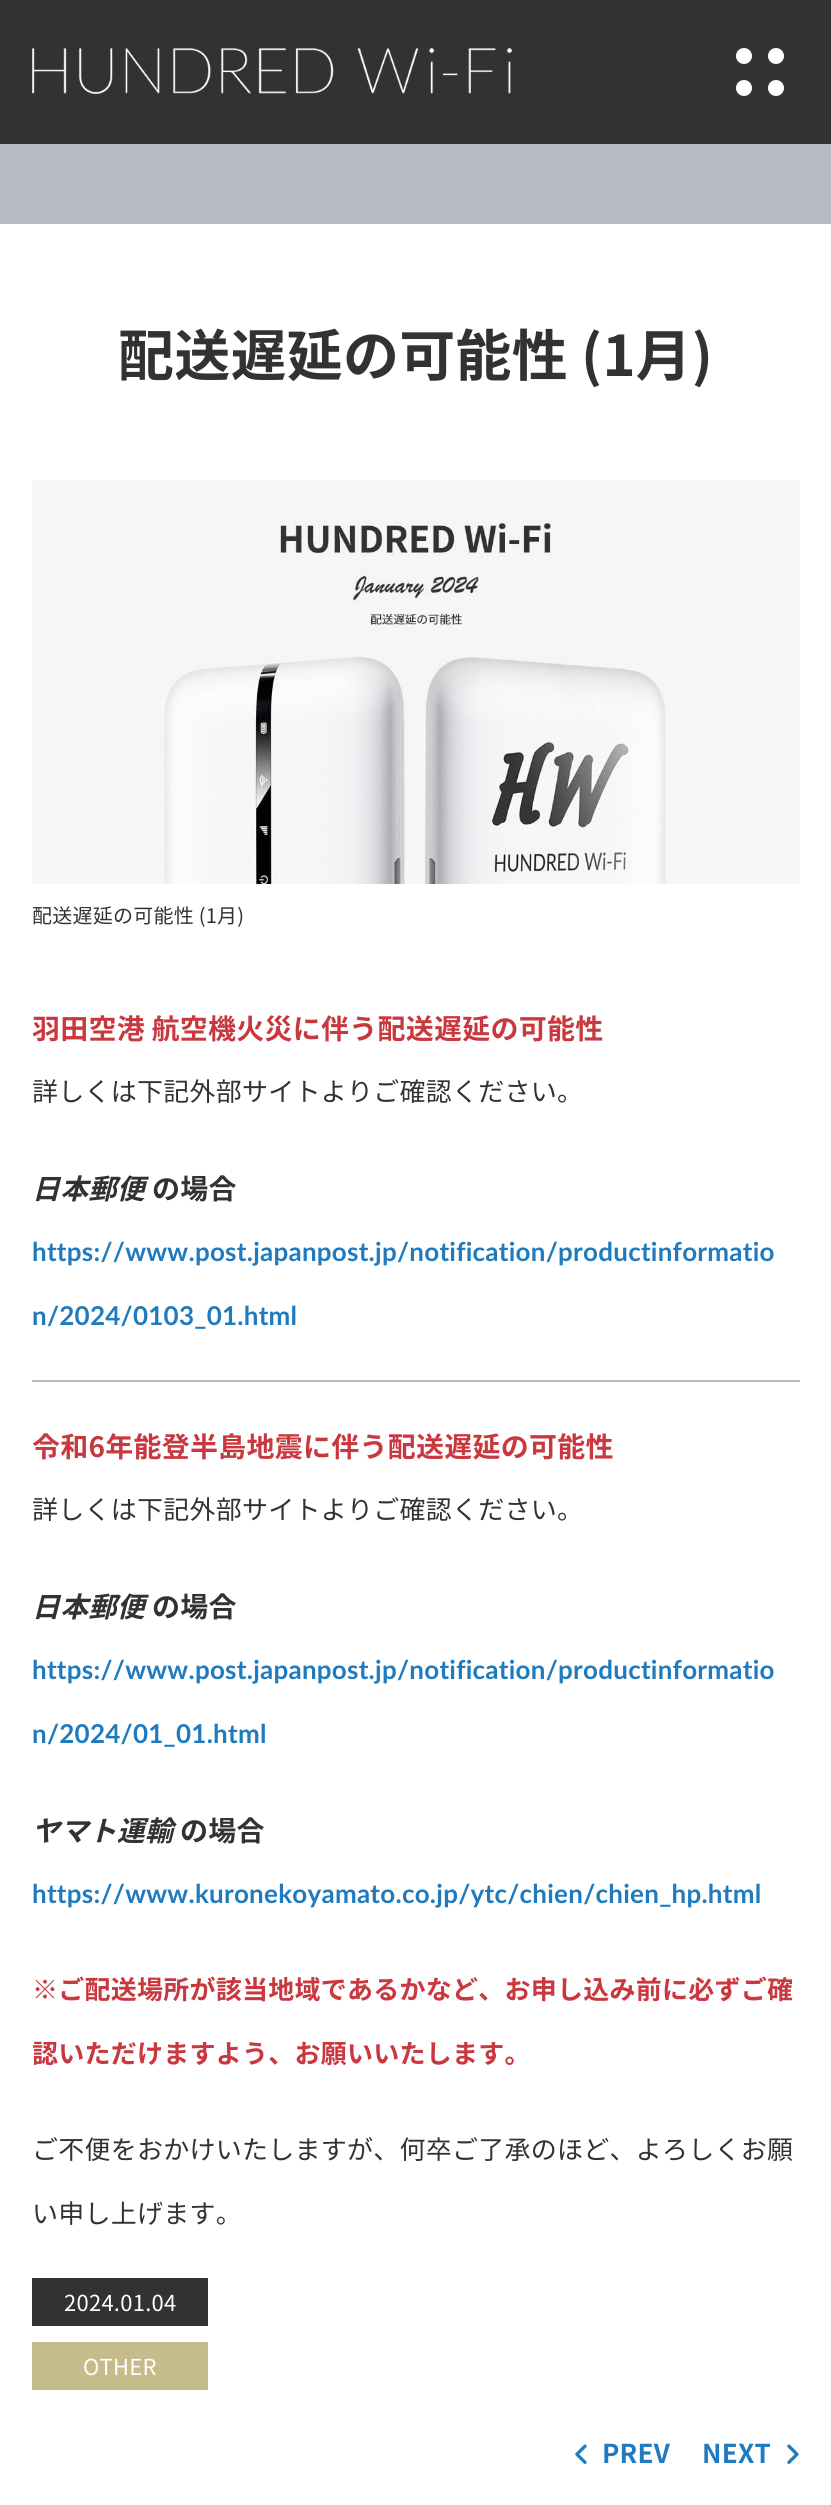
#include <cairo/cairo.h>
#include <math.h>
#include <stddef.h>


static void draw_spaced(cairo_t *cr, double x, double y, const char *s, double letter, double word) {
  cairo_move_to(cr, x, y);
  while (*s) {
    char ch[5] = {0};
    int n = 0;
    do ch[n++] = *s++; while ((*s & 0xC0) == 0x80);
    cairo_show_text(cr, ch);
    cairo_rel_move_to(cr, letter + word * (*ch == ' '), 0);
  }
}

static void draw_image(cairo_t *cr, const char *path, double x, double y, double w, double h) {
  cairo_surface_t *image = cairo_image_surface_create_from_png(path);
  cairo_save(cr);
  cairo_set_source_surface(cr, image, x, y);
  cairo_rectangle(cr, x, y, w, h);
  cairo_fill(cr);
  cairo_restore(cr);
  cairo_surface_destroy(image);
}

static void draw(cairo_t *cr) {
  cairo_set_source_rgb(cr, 1, 1, 1);
  cairo_paint(cr);
  cairo_set_source_rgb(cr, 49 / 255.0, 50 / 255.0, 52 / 255.0);
  cairo_rectangle(cr, 0, 0, 831, 144);
  cairo_fill(cr);
  cairo_set_source_rgb(cr, 1, 1, 1);
  cairo_arc(cr, 744, 56, 8, 0, 2 * M_PI);
  cairo_fill(cr);
  cairo_arc(cr, 776, 56, 8, 0, 2 * M_PI);
  cairo_fill(cr);
  cairo_arc(cr, 744, 88, 8, 0, 2 * M_PI);
  cairo_fill(cr);
  cairo_arc(cr, 776, 88, 8, 0, 2 * M_PI);
  cairo_fill(cr);
  draw_image(cr, "images/1.png", 32, 48, 480, 46);
  cairo_set_source_rgb(cr, 182 / 255.0, 188 / 255.0, 194 / 255.0);
  cairo_rectangle(cr, 0, 144, 831, 80);
  cairo_fill(cr);
  draw_image(cr, "images/2.png", 32, 480, 768, 404);
  cairo_rectangle(cr, 32, 1380, 768, 2);
  cairo_fill(cr);
  cairo_set_source_rgb(cr, 49 / 255.0, 50 / 255.0, 52 / 255.0);
  cairo_rectangle(cr, 32, 2278, 176, 48);
  cairo_fill(cr);
  cairo_set_source_rgb(cr, 198 / 255.0, 187 / 255.0, 139 / 255.0);
  cairo_rectangle(cr, 32, 2342, 176, 48);
  cairo_fill(cr);
  draw_image(cr, "images/3.png", 575, 2444, 12, 20);
  draw_image(cr, "images/4.png", 787, 2444, 12, 20);
  cairo_select_font_face(cr, "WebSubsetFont", CAIRO_FONT_SLANT_NORMAL, CAIRO_FONT_WEIGHT_BOLD);
  cairo_set_font_size(cr, 56);
  cairo_set_source_rgb(cr, 49 / 255.0, 50 / 255.0, 52 / 255.0);
  draw_spaced(cr, 118, 376, "配送遅延の可能性 (1月)", 0.25, 0);
  cairo_select_font_face(cr, "WebSubsetFont", CAIRO_FONT_SLANT_NORMAL, CAIRO_FONT_WEIGHT_NORMAL);
  cairo_set_font_size(cr, 20);
  draw_spaced(cr, 32, 923, "配送遅延の可能性 (1月)", 0.25, 0);
  cairo_select_font_face(cr, "WebSubsetFont", CAIRO_FONT_SLANT_NORMAL, CAIRO_FONT_WEIGHT_BOLD);
  cairo_set_font_size(cr, 28);
  cairo_set_source_rgb(cr, 201 / 255.0, 56 / 255.0, 63 / 255.0);
  draw_spaced(cr, 32, 1039, "羽田空港 航空機火災に伴う配送遅延の可能性", 0.25, 0);
  cairo_select_font_face(cr, "WebSubsetFont", CAIRO_FONT_SLANT_NORMAL, CAIRO_FONT_WEIGHT_NORMAL);
  cairo_set_font_size(cr, 26);
  cairo_set_source_rgb(cr, 49 / 255.0, 50 / 255.0, 52 / 255.0);
  draw_spaced(cr, 32, 1101, "詳しくは下記外部サイトよりご確認ください。", 0.25, 0);
  cairo_select_font_face(cr, "WebSubsetFont", CAIRO_FONT_SLANT_ITALIC, CAIRO_FONT_WEIGHT_BOLD);
  cairo_set_font_size(cr, 28);
  draw_spaced(cr, 32, 1199, "日本郵便", 0.25, 0);
  cairo_select_font_face(cr, "WebSubsetFont", CAIRO_FONT_SLANT_NORMAL, CAIRO_FONT_WEIGHT_BOLD);
  draw_spaced(cr, 152, 1199, "の場合", 0.25, 0);
  cairo_select_font_face(cr, "Lato", CAIRO_FONT_SLANT_NORMAL, CAIRO_FONT_WEIGHT_BOLD);
  cairo_set_font_size(cr, 26);
  cairo_set_source_rgb(cr, 31 / 255.0, 123 / 255.0, 190 / 255.0);
  draw_spaced(cr, 32, 1261, "https://www.post.japanpost.jp/notification/productinformatio", 0.25, 0);
  draw_spaced(cr, 32, 1325, "n/2024/0103_01.html", 0.25, 0);
  cairo_select_font_face(cr, "WebSubsetFont", CAIRO_FONT_SLANT_NORMAL, CAIRO_FONT_WEIGHT_BOLD);
  cairo_set_font_size(cr, 28);
  cairo_set_source_rgb(cr, 201 / 255.0, 56 / 255.0, 63 / 255.0);
  draw_spaced(cr, 32, 1457, "令和6年能登半島地震に伴う配送遅延の可能性", 0.25, 0);
  cairo_select_font_face(cr, "WebSubsetFont", CAIRO_FONT_SLANT_NORMAL, CAIRO_FONT_WEIGHT_NORMAL);
  cairo_set_font_size(cr, 26);
  cairo_set_source_rgb(cr, 49 / 255.0, 50 / 255.0, 52 / 255.0);
  draw_spaced(cr, 32, 1519, "詳しくは下記外部サイトよりご確認ください。", 0.25, 0);
  cairo_select_font_face(cr, "WebSubsetFont", CAIRO_FONT_SLANT_ITALIC, CAIRO_FONT_WEIGHT_BOLD);
  cairo_set_font_size(cr, 28);
  draw_spaced(cr, 32, 1617, "日本郵便", 0.25, 0);
  cairo_select_font_face(cr, "WebSubsetFont", CAIRO_FONT_SLANT_NORMAL, CAIRO_FONT_WEIGHT_BOLD);
  draw_spaced(cr, 152, 1617, "の場合", 0.25, 0);
  cairo_select_font_face(cr, "Lato", CAIRO_FONT_SLANT_NORMAL, CAIRO_FONT_WEIGHT_BOLD);
  cairo_set_font_size(cr, 26);
  cairo_set_source_rgb(cr, 31 / 255.0, 123 / 255.0, 190 / 255.0);
  draw_spaced(cr, 32, 1679, "https://www.post.japanpost.jp/notification/productinformatio", 0.25, 0);
  draw_spaced(cr, 32, 1743, "n/2024/01_01.html", 0.25, 0);
  cairo_select_font_face(cr, "WebSubsetFont", CAIRO_FONT_SLANT_ITALIC, CAIRO_FONT_WEIGHT_BOLD);
  cairo_set_font_size(cr, 28);
  cairo_set_source_rgb(cr, 49 / 255.0, 50 / 255.0, 52 / 255.0);
  draw_spaced(cr, 32, 1841, "ヤマト運輸", 0.25, 0);
  cairo_select_font_face(cr, "WebSubsetFont", CAIRO_FONT_SLANT_NORMAL, CAIRO_FONT_WEIGHT_BOLD);
  draw_spaced(cr, 180, 1841, "の場合", 0.25, 0);
  cairo_select_font_face(cr, "Lato", CAIRO_FONT_SLANT_NORMAL, CAIRO_FONT_WEIGHT_BOLD);
  cairo_set_font_size(cr, 26);
  cairo_set_source_rgb(cr, 31 / 255.0, 123 / 255.0, 190 / 255.0);
  draw_spaced(cr, 32, 1903, "https://www.kuronekoyamato.co.jp/ytc/chien/chien_hp.html", 0.25, 0);
  cairo_select_font_face(cr, "WebSubsetFont", CAIRO_FONT_SLANT_NORMAL, CAIRO_FONT_WEIGHT_BOLD);
  cairo_set_source_rgb(cr, 201 / 255.0, 56 / 255.0, 63 / 255.0);
  draw_spaced(cr, 32, 1999, "※ご配送場所が該当地域であるかなど、お申し込み前に必ずご確", 0.25, 0);
  draw_spaced(cr, 32, 2063, "認いただけますよう、お願いいたします。", 0.25, 0);
  cairo_select_font_face(cr, "WebSubsetFont", CAIRO_FONT_SLANT_NORMAL, CAIRO_FONT_WEIGHT_NORMAL);
  cairo_set_source_rgb(cr, 49 / 255.0, 50 / 255.0, 52 / 255.0);
  draw_spaced(cr, 32, 2159, "ご不便をおかけいたしますが、何卒ご了承のほど、よろしくお願", 0.25, 0);
  draw_spaced(cr, 32, 2223, "い申し上げます。", 0.25, 0);
  cairo_set_font_size(cr, 22);
  cairo_set_source_rgb(cr, 1, 1, 1);
  draw_spaced(cr, 64, 2311, "2024.01.04", 0.25, 0);
  draw_spaced(cr, 83, 2375, "OTHER", 0.25, 0);
  cairo_select_font_face(cr, "WebSubsetFont", CAIRO_FONT_SLANT_NORMAL, CAIRO_FONT_WEIGHT_BOLD);
  cairo_set_font_size(cr, 26);
  cairo_set_source_rgb(cr, 31 / 255.0, 123 / 255.0, 190 / 255.0);
  draw_spaced(cr, 602, 2463, "PREV", 0.25, 0);
  draw_spaced(cr, 702, 2463, "NEXT", 0.25, 0);
}

int main(void) {
  cairo_surface_t *surface = cairo_image_surface_create(CAIRO_FORMAT_RGB24, 831, 2505);
  cairo_t *cr = cairo_create(surface);
  cairo_font_options_t *options = cairo_font_options_create();
  cairo_font_options_set_hint_metrics(options, CAIRO_HINT_METRICS_OFF);
  cairo_font_options_set_hint_style(options, CAIRO_HINT_STYLE_NONE);
  cairo_set_font_options(cr, options);
  cairo_set_miter_limit(cr, 4);
  draw(cr);
  cairo_surface_write_to_png(surface, "out.png");
  cairo_font_options_destroy(options);
  cairo_destroy(cr);
  cairo_surface_destroy(surface);
  return 0;
}
